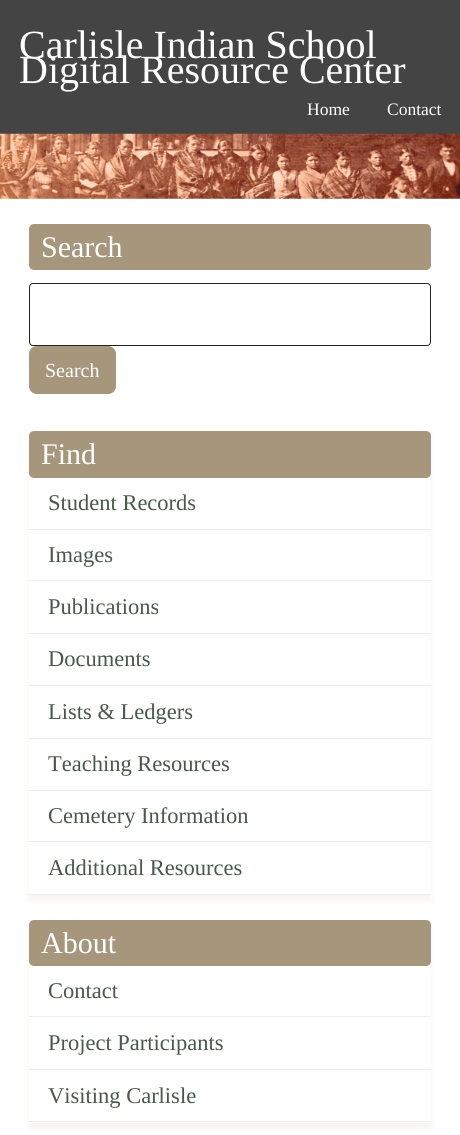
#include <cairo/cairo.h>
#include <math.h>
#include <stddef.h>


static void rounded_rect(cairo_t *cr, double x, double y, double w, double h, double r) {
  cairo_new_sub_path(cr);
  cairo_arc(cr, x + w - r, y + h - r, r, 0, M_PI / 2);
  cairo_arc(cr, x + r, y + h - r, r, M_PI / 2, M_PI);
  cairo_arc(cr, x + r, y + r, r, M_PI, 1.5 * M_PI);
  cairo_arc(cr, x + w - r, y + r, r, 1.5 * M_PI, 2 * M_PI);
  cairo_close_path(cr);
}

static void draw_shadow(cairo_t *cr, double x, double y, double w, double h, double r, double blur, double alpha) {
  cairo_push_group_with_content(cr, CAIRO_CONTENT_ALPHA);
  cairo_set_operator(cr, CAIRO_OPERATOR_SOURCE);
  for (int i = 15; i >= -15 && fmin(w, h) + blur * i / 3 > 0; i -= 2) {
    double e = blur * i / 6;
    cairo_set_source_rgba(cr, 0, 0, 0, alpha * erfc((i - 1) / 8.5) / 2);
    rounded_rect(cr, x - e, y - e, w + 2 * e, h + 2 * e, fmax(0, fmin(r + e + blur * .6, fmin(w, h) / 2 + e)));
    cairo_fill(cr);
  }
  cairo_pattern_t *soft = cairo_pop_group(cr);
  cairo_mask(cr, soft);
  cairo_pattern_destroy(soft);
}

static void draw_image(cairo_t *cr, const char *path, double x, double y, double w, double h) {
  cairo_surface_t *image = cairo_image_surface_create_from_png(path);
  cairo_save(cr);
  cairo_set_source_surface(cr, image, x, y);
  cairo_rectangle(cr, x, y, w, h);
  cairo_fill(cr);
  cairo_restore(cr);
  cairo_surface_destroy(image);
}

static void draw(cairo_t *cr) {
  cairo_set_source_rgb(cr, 1, 1, 1);
  cairo_paint(cr);
  cairo_set_source_rgb(cr, 68 / 255.0, 68 / 255.0, 68 / 255.0);
  cairo_rectangle(cr, 0, 0, 460, 134);
  cairo_fill(cr);
  draw_image(cr, "images/1.png", 0, 133, 460, 66);
  cairo_set_source_rgb(cr, 166 / 255.0, 151 / 255.0, 124 / 255.0);
  rounded_rect(cr, 29, 224, 402, 46, 5);
  cairo_fill(cr);
  rounded_rect(cr, 29.5, 283.5, 401, 62, 3.5);
  cairo_set_source_rgb(cr, 36 / 255.0, 36 / 255.0, 36 / 255.0);
  cairo_set_line_width(cr, 1);
  cairo_stroke(cr);
  cairo_set_source_rgb(cr, 166 / 255.0, 151 / 255.0, 124 / 255.0);
  rounded_rect(cr, 29.5, 346.5, 86, 47, 7.5);
  cairo_fill_preserve(cr);
  cairo_stroke(cr);
  cairo_save(cr);
  cairo_set_fill_rule(cr, CAIRO_FILL_RULE_EVEN_ODD);
  cairo_new_path(cr);
  cairo_move_to(cr, 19, 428);
  cairo_line_to(cr, 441, 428);
  cairo_line_to(cr, 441, 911);
  cairo_line_to(cr, 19, 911);
  cairo_close_path(cr);
  cairo_move_to(cr, 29, 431);
  cairo_line_to(cr, 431, 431);
  cairo_line_to(cr, 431, 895);
  cairo_line_to(cr, 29, 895);
  cairo_close_path(cr);
  cairo_clip(cr);
  cairo_set_source_rgb(cr, 166 / 255.0, 151 / 255.0, 124 / 255.0);
  draw_shadow(cr, 29, 438, 402, 463, 0, 3, 0.1);
  cairo_restore(cr);
  rounded_rect(cr, 29, 431, 402, 47, 5);
  cairo_fill(cr);
  cairo_set_source_rgb(cr, 238 / 255.0, 238 / 255.0, 238 / 255.0);
  cairo_rectangle(cr, 29, 529, 402, 1);
  cairo_fill(cr);
  cairo_rectangle(cr, 29, 580, 402, 1);
  cairo_fill(cr);
  cairo_rectangle(cr, 29, 633, 402, 1);
  cairo_fill(cr);
  cairo_rectangle(cr, 29, 685, 402, 1);
  cairo_fill(cr);
  cairo_rectangle(cr, 29, 738, 402, 1);
  cairo_fill(cr);
  cairo_rectangle(cr, 29, 790, 402, 1);
  cairo_fill(cr);
  cairo_rectangle(cr, 29, 841, 402, 1);
  cairo_fill(cr);
  cairo_rectangle(cr, 29, 894, 402, 1);
  cairo_fill(cr);
  cairo_save(cr);
  cairo_set_fill_rule(cr, CAIRO_FILL_RULE_EVEN_ODD);
  cairo_new_path(cr);
  cairo_move_to(cr, 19, 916);
  cairo_line_to(cr, 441, 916);
  cairo_line_to(cr, 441, 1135);
  cairo_line_to(cr, 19, 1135);
  cairo_close_path(cr);
  cairo_move_to(cr, 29, 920);
  cairo_line_to(cr, 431, 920);
  cairo_line_to(cr, 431, 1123);
  cairo_line_to(cr, 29, 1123);
  cairo_close_path(cr);
  cairo_clip(cr);
  cairo_set_source_rgb(cr, 166 / 255.0, 151 / 255.0, 124 / 255.0);
  draw_shadow(cr, 29, 926, 402, 203, 0, 3, 0.1);
  cairo_restore(cr);
  cairo_set_source_rgb(cr, 166 / 255.0, 151 / 255.0, 124 / 255.0);
  rounded_rect(cr, 29, 920, 402, 46, 5);
  cairo_fill(cr);
  cairo_set_source_rgb(cr, 238 / 255.0, 238 / 255.0, 238 / 255.0);
  cairo_rectangle(cr, 29, 1016, 402, 1);
  cairo_fill(cr);
  cairo_rectangle(cr, 29, 1069, 402, 1);
  cairo_fill(cr);
  cairo_rectangle(cr, 29, 1121, 402, 1);
  cairo_fill(cr);
  cairo_select_font_face(cr, "Liberation Serif", CAIRO_FONT_SLANT_NORMAL, CAIRO_FONT_WEIGHT_NORMAL);
  cairo_set_font_size(cr, 40);
  cairo_set_source_rgb(cr, 1, 1, 1);
  cairo_move_to(cr, 19, 58);
  cairo_show_text(cr, "Carlisle Indian School");
  cairo_move_to(cr, 19, 83);
  cairo_show_text(cr, "Digital Resource Center");
  cairo_set_font_size(cr, 17.5);
  cairo_move_to(cr, 307, 115);
  cairo_show_text(cr, "Home");
  cairo_move_to(cr, 387, 115);
  cairo_show_text(cr, "Contact");
  cairo_set_font_size(cr, 30);
  cairo_move_to(cr, 41, 257);
  cairo_show_text(cr, "Search");
  cairo_set_font_size(cr, 20);
  cairo_move_to(cr, 45, 377);
  cairo_show_text(cr, "Search");
  cairo_set_font_size(cr, 30);
  cairo_move_to(cr, 41, 464);
  cairo_show_text(cr, "Find");
  cairo_set_font_size(cr, 22.5);
  cairo_set_source_rgb(cr, 70 / 255.0, 89 / 255.0, 75 / 255.0);
  cairo_move_to(cr, 48, 510);
  cairo_show_text(cr, "Student Records");
  cairo_move_to(cr, 48, 562);
  cairo_show_text(cr, "Images");
  cairo_move_to(cr, 48, 614);
  cairo_show_text(cr, "Publications");
  cairo_move_to(cr, 48, 666);
  cairo_show_text(cr, "Documents");
  cairo_move_to(cr, 48, 719);
  cairo_show_text(cr, "Lists & Ledgers");
  cairo_move_to(cr, 48, 771);
  cairo_show_text(cr, "Teaching Resources");
  cairo_move_to(cr, 48, 823);
  cairo_show_text(cr, "Cemetery Information");
  cairo_move_to(cr, 48, 875);
  cairo_show_text(cr, "Additional Resources");
  cairo_set_font_size(cr, 30);
  cairo_set_source_rgb(cr, 1, 1, 1);
  cairo_move_to(cr, 41, 953);
  cairo_show_text(cr, "About");
  cairo_set_font_size(cr, 22.5);
  cairo_set_source_rgb(cr, 70 / 255.0, 89 / 255.0, 75 / 255.0);
  cairo_move_to(cr, 48, 998);
  cairo_show_text(cr, "Contact");
  cairo_move_to(cr, 48, 1050);
  cairo_show_text(cr, "Project Participants");
  cairo_move_to(cr, 48, 1103);
  cairo_show_text(cr, "Visiting Carlisle");
}

int main(void) {
  cairo_surface_t *surface = cairo_image_surface_create(CAIRO_FORMAT_RGB24, 460, 1135);
  cairo_t *cr = cairo_create(surface);
  cairo_font_options_t *options = cairo_font_options_create();
  cairo_font_options_set_hint_metrics(options, CAIRO_HINT_METRICS_OFF);
  cairo_font_options_set_hint_style(options, CAIRO_HINT_STYLE_NONE);
  cairo_set_font_options(cr, options);
  cairo_set_miter_limit(cr, 4);
  draw(cr);
  cairo_surface_write_to_png(surface, "out.png");
  cairo_font_options_destroy(options);
  cairo_destroy(cr);
  cairo_surface_destroy(surface);
  return 0;
}
